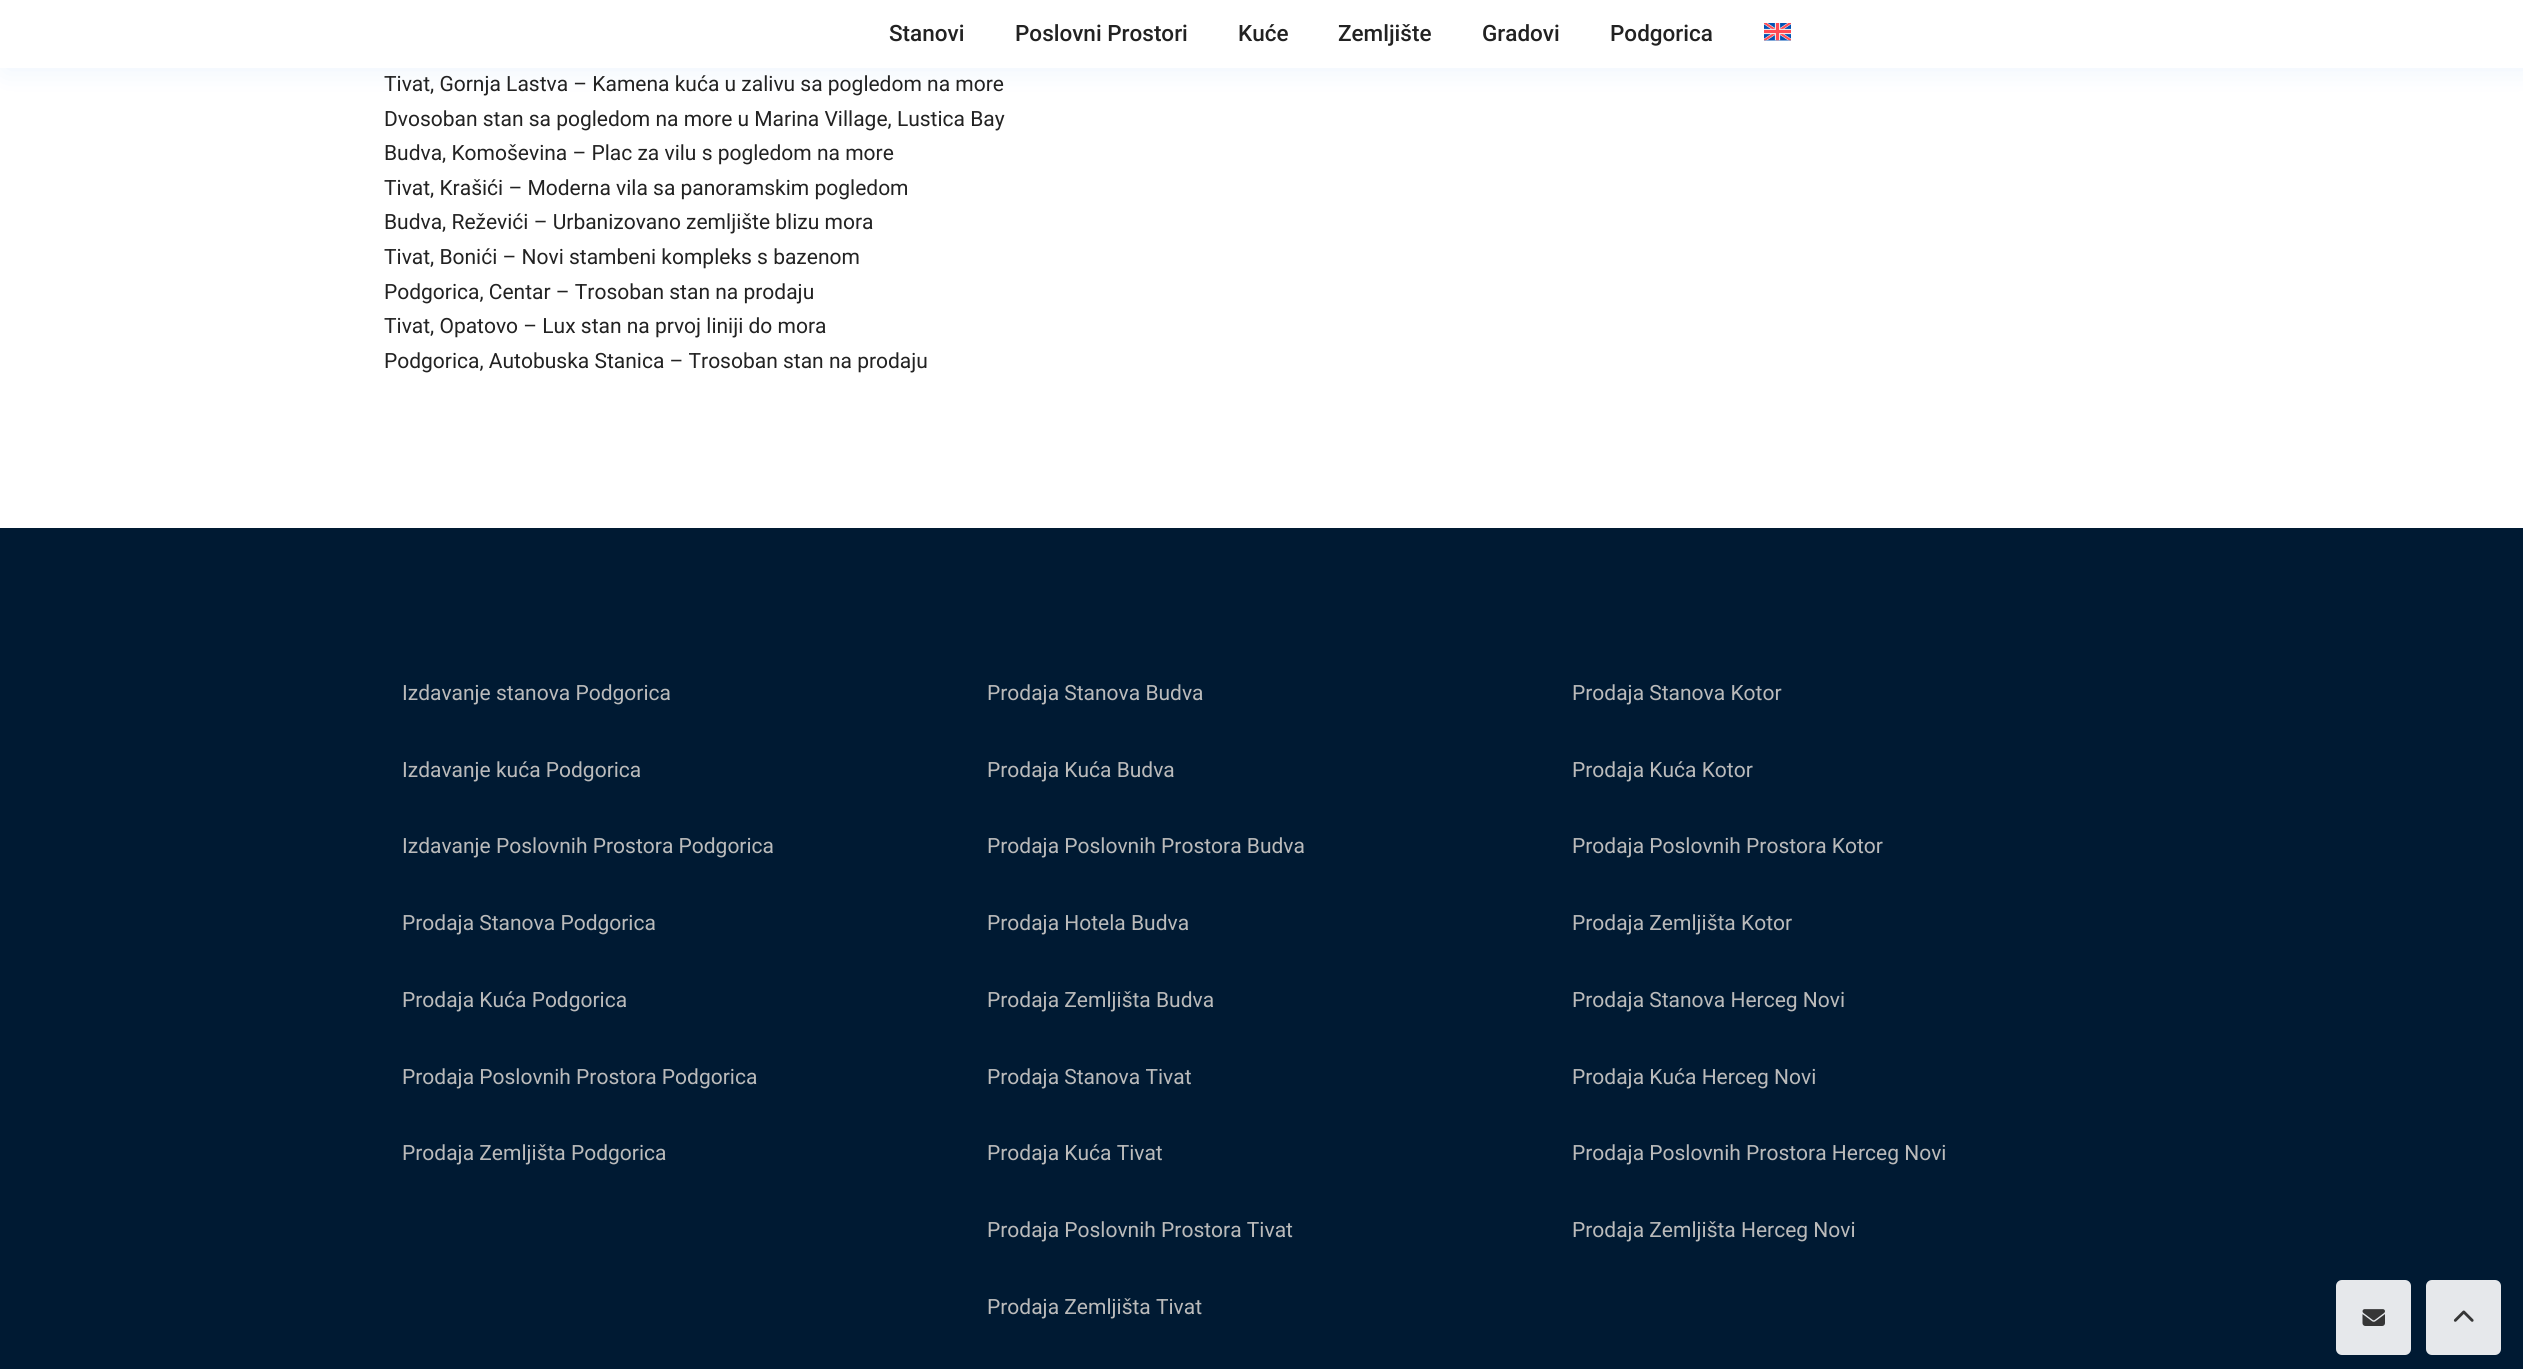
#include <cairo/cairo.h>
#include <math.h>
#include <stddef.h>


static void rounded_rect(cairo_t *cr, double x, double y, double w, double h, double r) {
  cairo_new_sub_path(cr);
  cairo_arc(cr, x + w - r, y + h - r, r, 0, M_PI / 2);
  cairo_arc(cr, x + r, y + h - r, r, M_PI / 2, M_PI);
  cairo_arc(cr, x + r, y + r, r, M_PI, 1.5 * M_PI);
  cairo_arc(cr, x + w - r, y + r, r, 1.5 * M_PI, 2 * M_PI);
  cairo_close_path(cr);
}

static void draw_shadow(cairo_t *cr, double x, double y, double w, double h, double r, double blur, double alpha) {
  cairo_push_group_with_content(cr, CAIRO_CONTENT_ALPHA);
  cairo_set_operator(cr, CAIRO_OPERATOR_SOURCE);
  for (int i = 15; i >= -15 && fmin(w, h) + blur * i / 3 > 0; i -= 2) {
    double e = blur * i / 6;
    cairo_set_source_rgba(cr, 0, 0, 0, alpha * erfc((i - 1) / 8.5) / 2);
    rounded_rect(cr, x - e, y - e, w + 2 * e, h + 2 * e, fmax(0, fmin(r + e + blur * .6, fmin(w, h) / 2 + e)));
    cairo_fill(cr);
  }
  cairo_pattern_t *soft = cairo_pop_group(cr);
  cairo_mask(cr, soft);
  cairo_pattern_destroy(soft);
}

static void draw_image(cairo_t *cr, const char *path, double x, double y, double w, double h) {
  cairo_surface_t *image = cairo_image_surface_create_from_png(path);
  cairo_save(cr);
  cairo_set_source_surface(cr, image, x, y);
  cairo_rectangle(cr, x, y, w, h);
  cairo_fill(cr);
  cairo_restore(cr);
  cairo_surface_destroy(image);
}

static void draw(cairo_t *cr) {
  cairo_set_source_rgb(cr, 1, 1, 1);
  cairo_paint(cr);
  cairo_set_source_rgb(cr, 0, 110 / 255.0, 225 / 255.0);
  draw_shadow(cr, 5, 2, 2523, 67, 0, 15, 0.08);
  cairo_set_source_rgb(cr, 1, 1, 1);
  cairo_rectangle(cr, 0, 0, 2523, 68);
  cairo_fill(cr);
  draw_image(cr, "images/1.png", 1764, 23, 27, 18);
  cairo_set_source_rgb(cr, 0, 26 / 255.0, 51 / 255.0);
  cairo_rectangle(cr, 0, 528, 2523, 841);
  cairo_fill(cr);
  cairo_set_source_rgb(cr, 230 / 255.0, 232 / 255.0, 235 / 255.0);
  rounded_rect(cr, 2336, 1280, 75, 75, 6);
  cairo_fill(cr);
  draw_image(cr, "images/2.png", 2362, 1309, 23, 17);
  rounded_rect(cr, 2426, 1280, 75, 75, 6);
  cairo_fill(cr);
  draw_image(cr, "images/3.png", 2453, 1310, 21, 12);
  cairo_select_font_face(cr, "Roboto Medium", CAIRO_FONT_SLANT_NORMAL, CAIRO_FONT_WEIGHT_NORMAL);
  cairo_set_font_size(cr, 22.5);
  cairo_set_source_rgb(cr, 34 / 255.0, 34 / 255.0, 34 / 255.0);
  cairo_move_to(cr, 889, 41);
  cairo_show_text(cr, "Stanovi");
  cairo_move_to(cr, 1015, 41);
  cairo_show_text(cr, "Poslovni Prostori");
  cairo_move_to(cr, 1238, 41);
  cairo_show_text(cr, "Kuće");
  cairo_move_to(cr, 1338, 41);
  cairo_show_text(cr, "Zemljište");
  cairo_move_to(cr, 1482, 41);
  cairo_show_text(cr, "Gradovi");
  cairo_move_to(cr, 1610, 41);
  cairo_show_text(cr, "Podgorica");
  cairo_select_font_face(cr, "Roboto", CAIRO_FONT_SLANT_NORMAL, CAIRO_FONT_WEIGHT_NORMAL);
  cairo_set_font_size(cr, 21);
  cairo_move_to(cr, 384, 91);
  cairo_show_text(cr, "Tivat, Gornja Lastva – Kamena kuća u zalivu sa pogledom na more");
  cairo_move_to(cr, 384, 126);
  cairo_show_text(cr, "Dvosoban stan sa pogledom na more u Marina Village, Lustica Bay");
  cairo_move_to(cr, 384, 160);
  cairo_show_text(cr, "Budva, Komoševina – Plac za vilu s pogledom na more");
  cairo_move_to(cr, 384, 195);
  cairo_show_text(cr, "Tivat, Krašići – Moderna vila sa panoramskim pogledom");
  cairo_move_to(cr, 384, 229);
  cairo_show_text(cr, "Budva, Reževići – Urbanizovano zemljište blizu mora");
  cairo_move_to(cr, 384, 264);
  cairo_show_text(cr, "Tivat, Bonići – Novi stambeni kompleks s bazenom");
  cairo_move_to(cr, 384, 299);
  cairo_show_text(cr, "Podgorica, Centar – Trosoban stan na prodaju");
  cairo_move_to(cr, 384, 333);
  cairo_show_text(cr, "Tivat, Opatovo – Lux stan na prvoj liniji do mora");
  cairo_move_to(cr, 384, 368);
  cairo_show_text(cr, "Podgorica, Autobuska Stanica – Trosoban stan na prodaju");
  cairo_set_source_rgb(cr, 187 / 255.0, 187 / 255.0, 187 / 255.0);
  cairo_move_to(cr, 402, 700);
  cairo_show_text(cr, "Izdavanje stanova Podgorica");
  cairo_move_to(cr, 402, 777);
  cairo_show_text(cr, "Izdavanje kuća Podgorica");
  cairo_move_to(cr, 402, 853);
  cairo_show_text(cr, "Izdavanje Poslovnih Prostora Podgorica");
  cairo_move_to(cr, 402, 930);
  cairo_show_text(cr, "Prodaja Stanova Podgorica");
  cairo_move_to(cr, 402, 1007);
  cairo_show_text(cr, "Prodaja Kuća Podgorica");
  cairo_move_to(cr, 402, 1084);
  cairo_show_text(cr, "Prodaja Poslovnih Prostora Podgorica");
  cairo_move_to(cr, 402, 1160);
  cairo_show_text(cr, "Prodaja Zemljišta Podgorica");
  cairo_move_to(cr, 987, 700);
  cairo_show_text(cr, "Prodaja Stanova Budva");
  cairo_move_to(cr, 987, 777);
  cairo_show_text(cr, "Prodaja Kuća Budva");
  cairo_move_to(cr, 987, 853);
  cairo_show_text(cr, "Prodaja Poslovnih Prostora Budva");
  cairo_move_to(cr, 987, 930);
  cairo_show_text(cr, "Prodaja Hotela Budva");
  cairo_move_to(cr, 987, 1007);
  cairo_show_text(cr, "Prodaja Zemljišta Budva");
  cairo_move_to(cr, 987, 1084);
  cairo_show_text(cr, "Prodaja Stanova Tivat");
  cairo_move_to(cr, 987, 1160);
  cairo_show_text(cr, "Prodaja Kuća Tivat");
  cairo_move_to(cr, 987, 1237);
  cairo_show_text(cr, "Prodaja Poslovnih Prostora Tivat");
  cairo_move_to(cr, 987, 1314);
  cairo_show_text(cr, "Prodaja Zemljišta Tivat");
  cairo_move_to(cr, 1572, 700);
  cairo_show_text(cr, "Prodaja Stanova Kotor");
  cairo_move_to(cr, 1572, 777);
  cairo_show_text(cr, "Prodaja Kuća Kotor");
  cairo_move_to(cr, 1572, 853);
  cairo_show_text(cr, "Prodaja Poslovnih Prostora Kotor");
  cairo_move_to(cr, 1572, 930);
  cairo_show_text(cr, "Prodaja Zemljišta Kotor");
  cairo_move_to(cr, 1572, 1007);
  cairo_show_text(cr, "Prodaja Stanova Herceg Novi");
  cairo_move_to(cr, 1572, 1084);
  cairo_show_text(cr, "Prodaja Kuća Herceg Novi");
  cairo_move_to(cr, 1572, 1160);
  cairo_show_text(cr, "Prodaja Poslovnih Prostora Herceg Novi");
  cairo_move_to(cr, 1572, 1237);
  cairo_show_text(cr, "Prodaja Zemljišta Herceg Novi");
}

int main(void) {
  cairo_surface_t *surface = cairo_image_surface_create(CAIRO_FORMAT_RGB24, 2523, 1369);
  cairo_t *cr = cairo_create(surface);
  cairo_font_options_t *options = cairo_font_options_create();
  cairo_font_options_set_hint_metrics(options, CAIRO_HINT_METRICS_OFF);
  cairo_font_options_set_hint_style(options, CAIRO_HINT_STYLE_NONE);
  cairo_set_font_options(cr, options);
  cairo_set_miter_limit(cr, 4);
  draw(cr);
  cairo_surface_write_to_png(surface, "out.png");
  cairo_font_options_destroy(options);
  cairo_destroy(cr);
  cairo_surface_destroy(surface);
  return 0;
}
